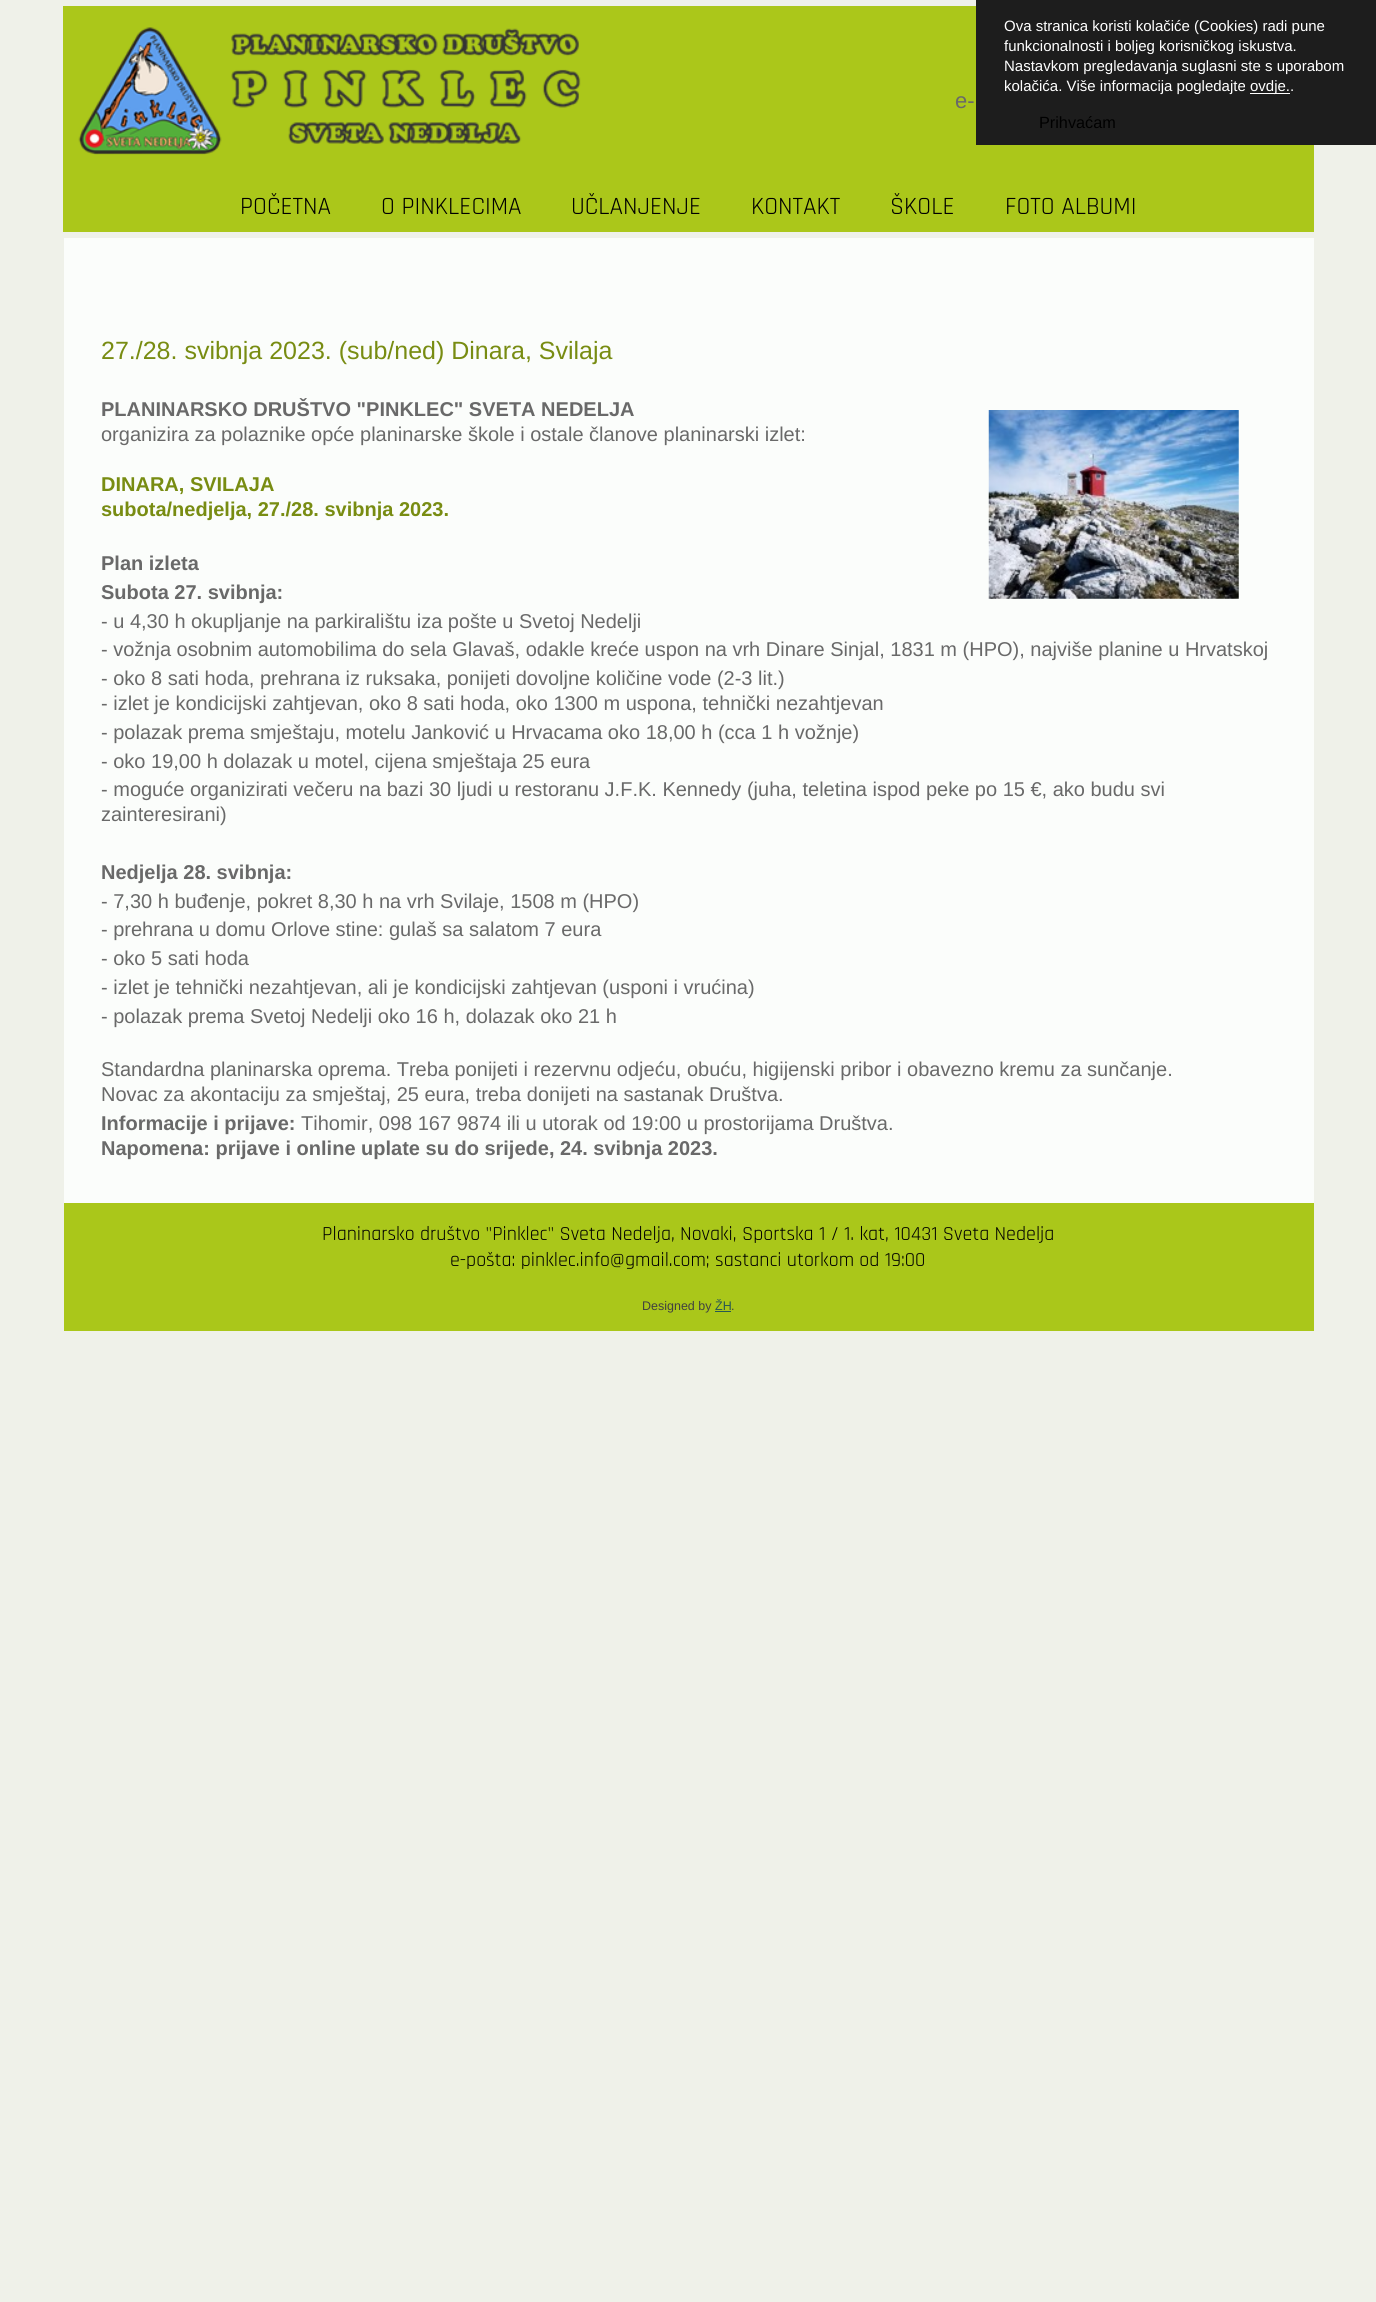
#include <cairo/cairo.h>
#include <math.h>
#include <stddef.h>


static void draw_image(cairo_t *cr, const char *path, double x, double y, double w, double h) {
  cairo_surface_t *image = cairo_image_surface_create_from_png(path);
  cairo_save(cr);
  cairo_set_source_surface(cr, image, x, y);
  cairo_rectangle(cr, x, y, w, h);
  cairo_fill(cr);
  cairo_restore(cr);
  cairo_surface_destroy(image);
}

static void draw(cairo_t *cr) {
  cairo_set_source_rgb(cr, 239 / 255.0, 241 / 255.0, 233 / 255.0);
  cairo_paint(cr);
  cairo_set_source_rgb(cr, 171 / 255.0, 199 / 255.0, 26 / 255.0);
  cairo_rectangle(cr, 63, 6, 1251, 226);
  cairo_fill(cr);
  cairo_set_source_rgb(cr, 29 / 255.0, 29 / 255.0, 29 / 255.0);
  cairo_rectangle(cr, 976, 0, 400, 145);
  cairo_fill(cr);
  cairo_set_source_rgb(cr, 1, 1, 1);
  cairo_rectangle(cr, 1250, 93, 40, 1);
  cairo_fill(cr);
  draw_image(cr, "images/1.png", 78, 27, 144, 128);
  draw_image(cr, "images/2.png", 231, 28, 350, 116);
  cairo_set_source_rgb(cr, 251 / 255.0, 253 / 255.0, 251 / 255.0);
  cairo_rectangle(cr, 64, 238, 1250, 965);
  cairo_fill(cr);
  draw_image(cr, "images/3.png", 988, 410, 251, 189);
  cairo_set_source_rgb(cr, 170 / 255.0, 199 / 255.0, 26 / 255.0);
  cairo_rectangle(cr, 64, 1203, 1250, 128);
  cairo_fill(cr);
  cairo_set_source_rgb(cr, 40 / 255.0, 88 / 255.0, 82 / 255.0);
  cairo_rectangle(cr, 715, 1311, 16, 1);
  cairo_fill(cr);
  cairo_select_font_face(cr, "Liberation Sans", CAIRO_FONT_SLANT_NORMAL, CAIRO_FONT_WEIGHT_NORMAL);
  cairo_set_font_size(cr, 15);
  cairo_set_source_rgb(cr, 1, 1, 1);
  cairo_move_to(cr, 1004, 31);
  cairo_show_text(cr, "Ova stranica koristi kolačiće (Cookies) radi pune");
  cairo_move_to(cr, 1004, 51);
  cairo_show_text(cr, "funkcionalnosti i boljeg korisničkog iskustva.");
  cairo_move_to(cr, 1004, 71);
  cairo_show_text(cr, "Nastavkom pregledavanja suglasni ste s uporabom");
  cairo_move_to(cr, 1004, 91);
  cairo_show_text(cr, "kolačića. Više informacija pogledajte");
  cairo_move_to(cr, 1250, 91);
  cairo_show_text(cr, "ovdje..");
  cairo_set_font_size(cr, 16.25);
  cairo_set_source_rgb(cr, 0, 0, 0);
  cairo_move_to(cr, 1039, 128);
  cairo_show_text(cr, "Prihvaćam");
  cairo_set_font_size(cr, 22);
  cairo_set_source_rgb(cr, 105 / 255.0, 105 / 255.0, 105 / 255.0);
  cairo_move_to(cr, 955, 108);
  cairo_show_text(cr, "e-");
  cairo_select_font_face(cr, "Rajdhani", CAIRO_FONT_SLANT_NORMAL, CAIRO_FONT_WEIGHT_NORMAL);
  cairo_set_font_size(cr, 25);
  cairo_set_source_rgb(cr, 0, 0, 0);
  cairo_move_to(cr, 240, 214);
  cairo_show_text(cr, "POČETNA");
  cairo_move_to(cr, 381, 214);
  cairo_show_text(cr, "O PINKLECIMA");
  cairo_move_to(cr, 571, 214);
  cairo_show_text(cr, "UČLANJENJE");
  cairo_move_to(cr, 751, 214);
  cairo_show_text(cr, "KONTAKT");
  cairo_move_to(cr, 890, 214);
  cairo_show_text(cr, "ŠKOLE");
  cairo_move_to(cr, 1005, 214);
  cairo_show_text(cr, "FOTO ALBUMI");
  cairo_select_font_face(cr, "Liberation Sans", CAIRO_FONT_SLANT_NORMAL, CAIRO_FONT_WEIGHT_NORMAL);
  cairo_set_source_rgb(cr, 120 / 255.0, 140 / 255.0, 18 / 255.0);
  cairo_move_to(cr, 101, 359);
  cairo_show_text(cr, "27./28. svibnja 2023. (sub/ned) Dinara, Svilaja");
  cairo_select_font_face(cr, "Liberation Sans", CAIRO_FONT_SLANT_NORMAL, CAIRO_FONT_WEIGHT_BOLD);
  cairo_set_font_size(cr, 20);
  cairo_set_source_rgb(cr, 105 / 255.0, 105 / 255.0, 105 / 255.0);
  cairo_move_to(cr, 101, 416);
  cairo_show_text(cr, "PLANINARSKO DRUŠTVO \"PINKLEC\" SVETA NEDELJA");
  cairo_select_font_face(cr, "Liberation Sans", CAIRO_FONT_SLANT_NORMAL, CAIRO_FONT_WEIGHT_NORMAL);
  cairo_move_to(cr, 101, 441);
  cairo_show_text(cr, "organizira za polaznike opće planinarske škole i ostale članove planinarski izlet:");
  cairo_select_font_face(cr, "Liberation Sans", CAIRO_FONT_SLANT_NORMAL, CAIRO_FONT_WEIGHT_BOLD);
  cairo_set_source_rgb(cr, 120 / 255.0, 140 / 255.0, 18 / 255.0);
  cairo_move_to(cr, 101, 491);
  cairo_show_text(cr, "DINARA, SVILAJA");
  cairo_move_to(cr, 101, 516);
  cairo_show_text(cr, "subota/nedjelja, 27./28. svibnja 2023.");
  cairo_set_source_rgb(cr, 105 / 255.0, 105 / 255.0, 105 / 255.0);
  cairo_move_to(cr, 101, 570);
  cairo_show_text(cr, "Plan izleta");
  cairo_move_to(cr, 101, 599);
  cairo_show_text(cr, "Subota 27. svibnja:");
  cairo_select_font_face(cr, "Liberation Sans", CAIRO_FONT_SLANT_NORMAL, CAIRO_FONT_WEIGHT_NORMAL);
  cairo_move_to(cr, 101, 628);
  cairo_show_text(cr, "- u 4,30 h okupljanje na parkiralištu iza pošte u Svetoj Nedelji");
  cairo_move_to(cr, 101, 656);
  cairo_show_text(cr, "- vožnja osobnim automobilima do sela Glavaš, odakle kreće uspon na vrh Dinare Sinjal, 1831 m (HPO), najviše planine u Hrvatskoj");
  cairo_move_to(cr, 101, 685);
  cairo_show_text(cr, "- oko 8 sati hoda, prehrana iz ruksaka, ponijeti dovoljne količine vode (2-3 lit.)");
  cairo_move_to(cr, 101, 710);
  cairo_show_text(cr, "- izlet je kondicijski zahtjevan, oko 8 sati hoda, oko 1300 m uspona, tehnički nezahtjevan");
  cairo_move_to(cr, 101, 739);
  cairo_show_text(cr, "- polazak prema smještaju, motelu Janković u Hrvacama oko 18,00 h (cca 1 h vožnje)");
  cairo_move_to(cr, 101, 768);
  cairo_show_text(cr, "- oko 19,00 h dolazak u motel, cijena smještaja 25 eura");
  cairo_move_to(cr, 101, 796);
  cairo_show_text(cr, "- moguće organizirati večeru na bazi 30 ljudi u restoranu J.F.K. Kennedy (juha, teletina ispod peke po 15 €, ako budu svi");
  cairo_move_to(cr, 101, 821);
  cairo_show_text(cr, "zainteresirani)");
  cairo_select_font_face(cr, "Liberation Sans", CAIRO_FONT_SLANT_NORMAL, CAIRO_FONT_WEIGHT_BOLD);
  cairo_move_to(cr, 101, 879);
  cairo_show_text(cr, "Nedjelja 28. svibnja:");
  cairo_select_font_face(cr, "Liberation Sans", CAIRO_FONT_SLANT_NORMAL, CAIRO_FONT_WEIGHT_NORMAL);
  cairo_move_to(cr, 101, 908);
  cairo_show_text(cr, "- 7,30 h buđenje, pokret 8,30 h na vrh Svilaje, 1508 m (HPO)");
  cairo_move_to(cr, 101, 936);
  cairo_show_text(cr, "- prehrana u domu Orlove stine: gulaš sa salatom 7 eura");
  cairo_move_to(cr, 101, 965);
  cairo_show_text(cr, "- oko 5 sati hoda");
  cairo_move_to(cr, 101, 994);
  cairo_show_text(cr, "- izlet je tehnički nezahtjevan, ali je kondicijski zahtjevan (usponi i vrućina)");
  cairo_move_to(cr, 101, 1023);
  cairo_show_text(cr, "- polazak prema Svetoj Nedelji oko 16 h, dolazak oko 21 h");
  cairo_move_to(cr, 101, 1076);
  cairo_show_text(cr, "Standardna planinarska oprema. Treba ponijeti i rezervnu odjeću, obuću, higijenski pribor i obavezno kremu za sunčanje.");
  cairo_move_to(cr, 101, 1101);
  cairo_show_text(cr, "Novac za akontaciju za smještaj, 25 eura, treba donijeti na sastanak Društva.");
  cairo_select_font_face(cr, "Liberation Sans", CAIRO_FONT_SLANT_NORMAL, CAIRO_FONT_WEIGHT_BOLD);
  cairo_move_to(cr, 101, 1130);
  cairo_show_text(cr, "Informacije i prijave:");
  cairo_select_font_face(cr, "Liberation Sans", CAIRO_FONT_SLANT_NORMAL, CAIRO_FONT_WEIGHT_NORMAL);
  cairo_move_to(cr, 301, 1130);
  cairo_show_text(cr, "Tihomir, 098 167 9874 ili u utorak od 19:00 u prostorijama Društva.");
  cairo_select_font_face(cr, "Liberation Sans", CAIRO_FONT_SLANT_NORMAL, CAIRO_FONT_WEIGHT_BOLD);
  cairo_move_to(cr, 101, 1155);
  cairo_show_text(cr, "Napomena: prijave i online uplate su do srijede, 24. svibnja 2023.");
  cairo_select_font_face(cr, "Rajdhani", CAIRO_FONT_SLANT_NORMAL, CAIRO_FONT_WEIGHT_NORMAL);
  cairo_set_source_rgb(cr, 0, 0, 0);
  cairo_move_to(cr, 322, 1240);
  cairo_show_text(cr, "Planinarsko društvo \"Pinklec\" Sveta Nedelja, Novaki, Sportska 1 / 1. kat, 10431 Sveta Nedelja");
  cairo_move_to(cr, 450, 1266);
  cairo_show_text(cr, "e-pošta: pinklec.info@gmail.com; sastanci utorkom od 19:00");
  cairo_select_font_face(cr, "Liberation Sans", CAIRO_FONT_SLANT_NORMAL, CAIRO_FONT_WEIGHT_NORMAL);
  cairo_set_font_size(cr, 12.5);
  cairo_set_source_rgb(cr, 64 / 255.0, 64 / 255.0, 64 / 255.0);
  cairo_move_to(cr, 642, 1310);
  cairo_show_text(cr, "Designed by");
  cairo_set_source_rgb(cr, 40 / 255.0, 88 / 255.0, 82 / 255.0);
  cairo_move_to(cr, 715, 1310);
  cairo_show_text(cr, "ŽH");
  cairo_set_source_rgb(cr, 64 / 255.0, 64 / 255.0, 64 / 255.0);
  cairo_move_to(cr, 731, 1310);
  cairo_show_text(cr, ".");
}

int main(void) {
  cairo_surface_t *surface = cairo_image_surface_create(CAIRO_FORMAT_RGB24, 1376, 2302);
  cairo_t *cr = cairo_create(surface);
  cairo_font_options_t *options = cairo_font_options_create();
  cairo_font_options_set_hint_metrics(options, CAIRO_HINT_METRICS_OFF);
  cairo_font_options_set_hint_style(options, CAIRO_HINT_STYLE_NONE);
  cairo_set_font_options(cr, options);
  cairo_set_miter_limit(cr, 4);
  draw(cr);
  cairo_surface_write_to_png(surface, "out.png");
  cairo_font_options_destroy(options);
  cairo_destroy(cr);
  cairo_surface_destroy(surface);
  return 0;
}
